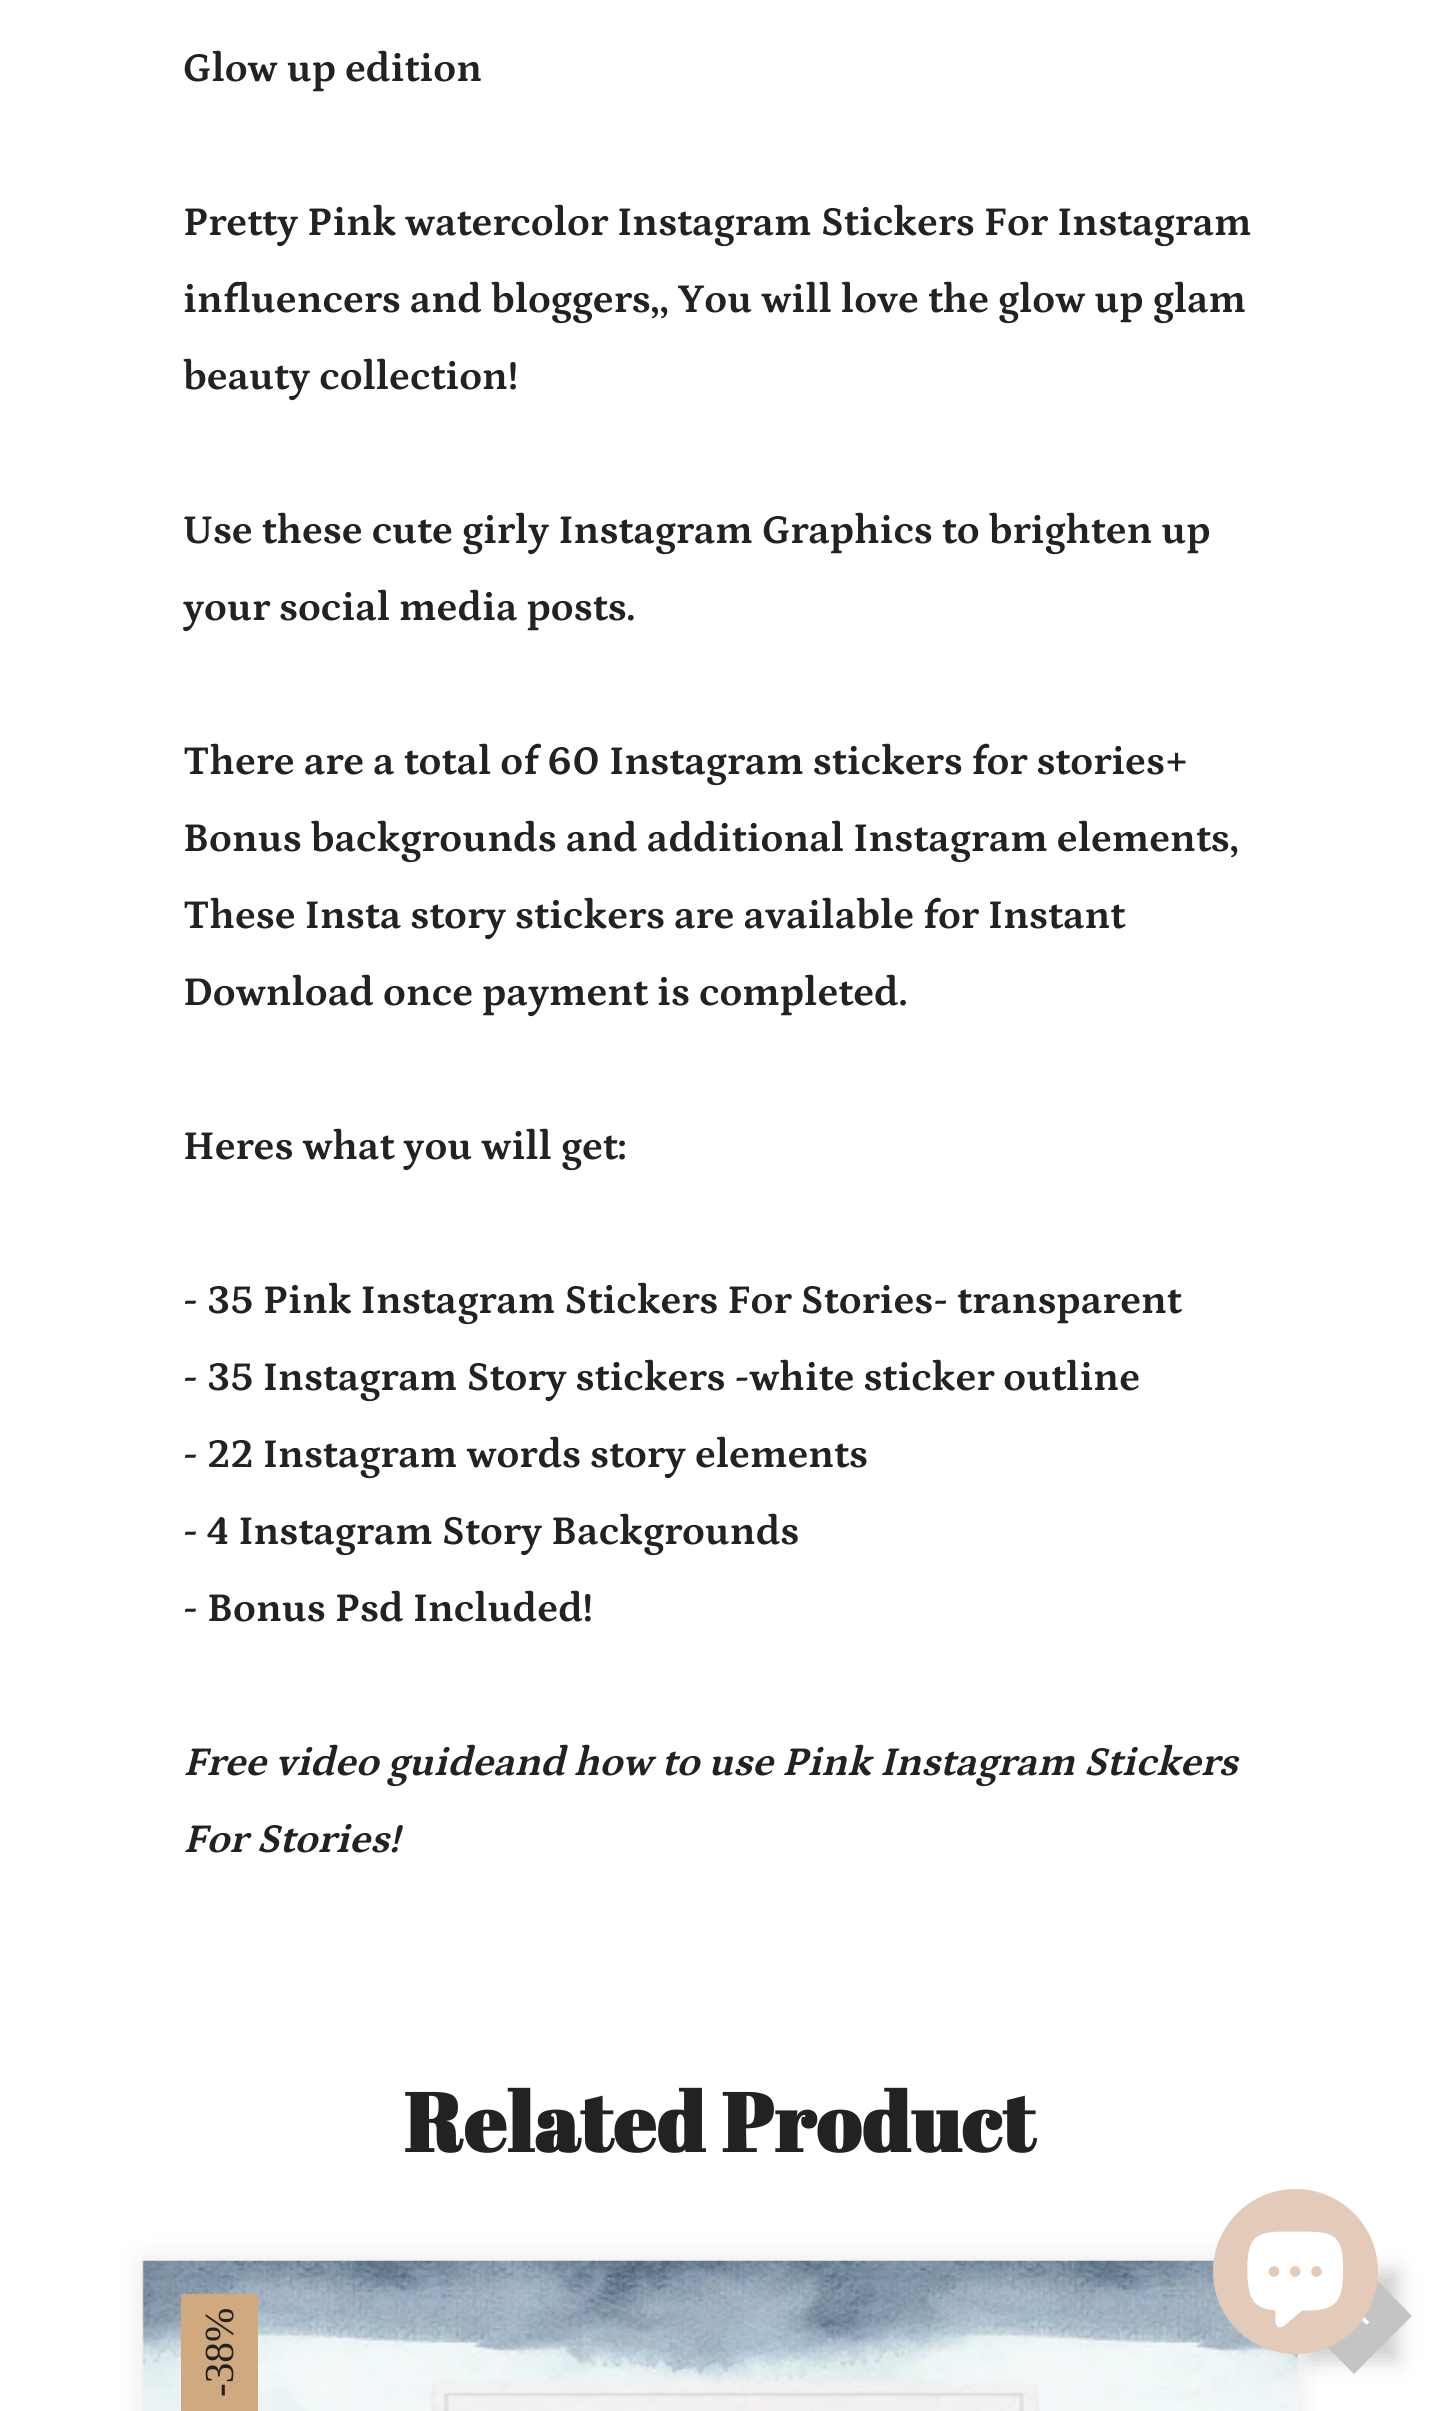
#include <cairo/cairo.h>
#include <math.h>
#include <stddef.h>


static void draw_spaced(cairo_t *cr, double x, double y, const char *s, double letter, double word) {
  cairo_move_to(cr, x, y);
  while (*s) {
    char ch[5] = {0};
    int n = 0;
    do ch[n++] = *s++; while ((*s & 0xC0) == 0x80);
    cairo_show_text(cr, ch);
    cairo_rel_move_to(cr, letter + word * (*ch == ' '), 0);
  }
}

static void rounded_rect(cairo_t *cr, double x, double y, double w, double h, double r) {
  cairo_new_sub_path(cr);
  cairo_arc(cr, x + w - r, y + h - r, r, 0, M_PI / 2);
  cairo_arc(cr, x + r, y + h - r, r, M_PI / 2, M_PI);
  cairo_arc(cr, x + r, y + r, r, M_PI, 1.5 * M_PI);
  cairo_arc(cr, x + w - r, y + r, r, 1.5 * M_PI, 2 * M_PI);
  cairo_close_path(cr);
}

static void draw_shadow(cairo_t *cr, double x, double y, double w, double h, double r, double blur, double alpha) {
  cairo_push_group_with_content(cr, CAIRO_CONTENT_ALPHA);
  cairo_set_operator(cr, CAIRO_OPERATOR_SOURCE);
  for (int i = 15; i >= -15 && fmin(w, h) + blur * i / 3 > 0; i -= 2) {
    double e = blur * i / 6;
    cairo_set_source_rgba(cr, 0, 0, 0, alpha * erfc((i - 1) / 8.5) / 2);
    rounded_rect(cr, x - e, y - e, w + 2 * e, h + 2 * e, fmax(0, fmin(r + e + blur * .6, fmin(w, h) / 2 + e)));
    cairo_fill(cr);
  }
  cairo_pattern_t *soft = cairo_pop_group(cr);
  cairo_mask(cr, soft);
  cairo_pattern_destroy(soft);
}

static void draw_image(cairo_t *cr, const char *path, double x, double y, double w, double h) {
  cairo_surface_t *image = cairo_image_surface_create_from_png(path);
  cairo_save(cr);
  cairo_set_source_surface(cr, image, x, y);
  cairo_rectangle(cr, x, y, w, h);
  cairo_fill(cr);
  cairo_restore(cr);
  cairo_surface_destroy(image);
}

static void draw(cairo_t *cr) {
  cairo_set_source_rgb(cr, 1, 1, 1);
  cairo_paint(cr);
  cairo_set_source_rgb(cr, 0, 0, 0);
  draw_shadow(cr, 143, 2261, 1155, 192, 0, 14, 0.1);
  draw_image(cr, "images/1.png", 142, 2260, 1156, 151);
  cairo_set_source_rgb(cr, 208 / 255.0, 169 / 255.0, 126 / 255.0);
  cairo_rectangle(cr, 181, 2294, 77, 117);
  cairo_fill(cr);
  cairo_set_source_rgb(cr, 0, 0, 0);
  draw_shadow(cr, 1309, 2272, 88, 88, 0, 11, 0.2);
  cairo_set_source_rgb(cr, 196 / 255.0, 196 / 255.0, 196 / 255.0);
  cairo_new_path(cr);
  cairo_move_to(cr, 1354, 2257);
  cairo_line_to(cr, 1412, 2316);
  cairo_line_to(cr, 1354, 2374);
  cairo_line_to(cr, 1296, 2316);
  cairo_close_path(cr);
  cairo_fill(cr);
  draw_image(cr, "images/3.png", 1361, 2317, 8, 8);
  cairo_set_source_rgb(cr, 228 / 255.0, 202 / 255.0, 185 / 255.0);
  cairo_arc(cr, 1295.5, 2271.5, 82.5, 0, 2 * M_PI);
  cairo_fill(cr);
  draw_image(cr, "images/2.png", 1247, 2231, 97, 97);
  cairo_select_font_face(cr, "Petrona", CAIRO_FONT_SLANT_NORMAL, CAIRO_FONT_WEIGHT_BOLD);
  cairo_set_font_size(cr, 41.25);
  cairo_set_source_rgb(cr, 34 / 255.0, 34 / 255.0, 34 / 255.0);
  cairo_move_to(cr, 183, 81);
  cairo_show_text(cr, "Glow up edition");
  cairo_move_to(cr, 183, 235);
  cairo_show_text(cr, "Pretty Pink watercolor Instagram Stickers For Instagram");
  cairo_move_to(cr, 183, 312);
  cairo_show_text(cr, "influencers and bloggers,, You will love the glow up glam");
  cairo_move_to(cr, 183, 389);
  cairo_show_text(cr, "beauty collection!");
  cairo_move_to(cr, 183, 543);
  cairo_show_text(cr, "Use these cute girly Instagram Graphics to brighten up");
  cairo_move_to(cr, 183, 620);
  cairo_show_text(cr, "your social media posts.");
  cairo_move_to(cr, 183, 774);
  cairo_show_text(cr, "There are a total of 60 Instagram stickers for stories+");
  cairo_move_to(cr, 183, 851);
  cairo_show_text(cr, "Bonus backgrounds and additional Instagram elements,");
  cairo_move_to(cr, 183, 928);
  cairo_show_text(cr, "These Insta story stickers are available for Instant");
  cairo_move_to(cr, 183, 1005);
  cairo_show_text(cr, "Download once payment is completed.");
  cairo_move_to(cr, 183, 1159);
  cairo_show_text(cr, "Heres what you will get:");
  cairo_move_to(cr, 183, 1313);
  cairo_show_text(cr, "- 35 Pink Instagram Stickers For Stories- transparent");
  cairo_move_to(cr, 183, 1390);
  cairo_show_text(cr, "- 35 Instagram Story stickers -white sticker outline");
  cairo_move_to(cr, 183, 1467);
  cairo_show_text(cr, "- 22 Instagram words story elements");
  cairo_move_to(cr, 183, 1544);
  cairo_show_text(cr, "- 4 Instagram Story Backgrounds");
  cairo_move_to(cr, 183, 1621);
  cairo_show_text(cr, "- Bonus Psd Included!");
  cairo_select_font_face(cr, "Petrona", CAIRO_FONT_SLANT_ITALIC, CAIRO_FONT_WEIGHT_BOLD);
  cairo_move_to(cr, 183, 1775);
  cairo_show_text(cr, "Free video guideand how to use Pink Instagram Stickers");
  cairo_move_to(cr, 183, 1852);
  cairo_show_text(cr, "For Stories!");
  cairo_select_font_face(cr, "Abril Fatface", CAIRO_FONT_SLANT_NORMAL, CAIRO_FONT_WEIGHT_BOLD);
  cairo_set_font_size(cr, 82.5);
  draw_spaced(cr, 404, 2152, "Related Product", 0.75, 0);
  cairo_select_font_face(cr, "Liberation Serif", CAIRO_FONT_SLANT_NORMAL, CAIRO_FONT_WEIGHT_NORMAL);
  cairo_set_font_size(cr, 41.25);
  cairo_save(cr);
  cairo_translate(cr, 233, 2397);
  cairo_rotate(cr, -90 * M_PI / 180);
  cairo_move_to(cr, 0, 0);
  cairo_show_text(cr, "-38%");
  cairo_restore(cr);
}

int main(void) {
  cairo_surface_t *surface = cairo_image_surface_create(CAIRO_FORMAT_RGB24, 1436, 2411);
  cairo_t *cr = cairo_create(surface);
  cairo_font_options_t *options = cairo_font_options_create();
  cairo_font_options_set_hint_metrics(options, CAIRO_HINT_METRICS_OFF);
  cairo_font_options_set_hint_style(options, CAIRO_HINT_STYLE_NONE);
  cairo_set_font_options(cr, options);
  cairo_set_miter_limit(cr, 4);
  draw(cr);
  cairo_surface_write_to_png(surface, "out.png");
  cairo_font_options_destroy(options);
  cairo_destroy(cr);
  cairo_surface_destroy(surface);
  return 0;
}
